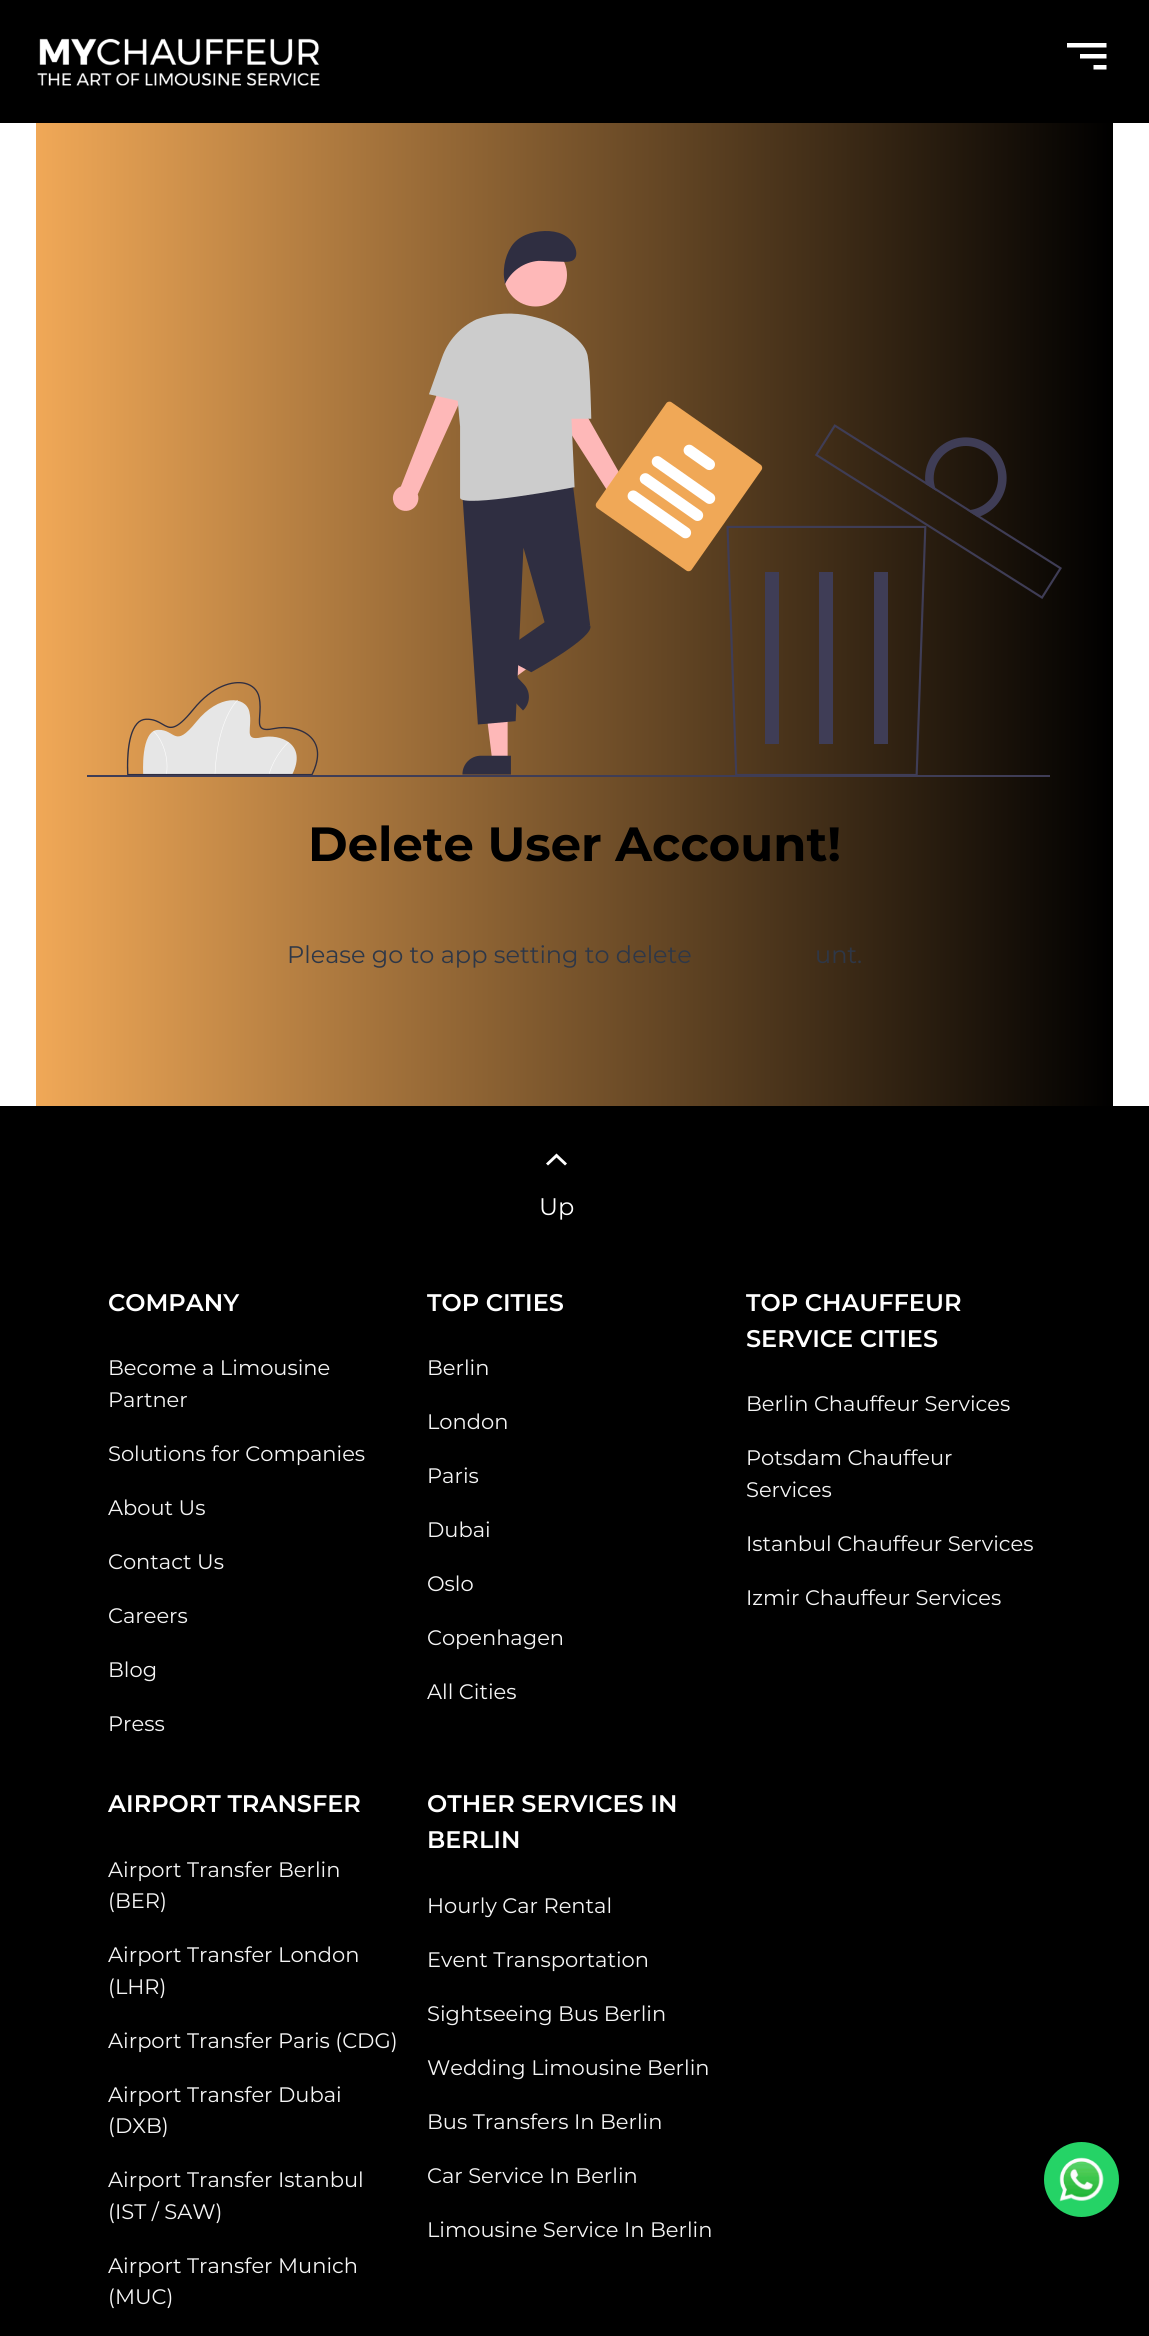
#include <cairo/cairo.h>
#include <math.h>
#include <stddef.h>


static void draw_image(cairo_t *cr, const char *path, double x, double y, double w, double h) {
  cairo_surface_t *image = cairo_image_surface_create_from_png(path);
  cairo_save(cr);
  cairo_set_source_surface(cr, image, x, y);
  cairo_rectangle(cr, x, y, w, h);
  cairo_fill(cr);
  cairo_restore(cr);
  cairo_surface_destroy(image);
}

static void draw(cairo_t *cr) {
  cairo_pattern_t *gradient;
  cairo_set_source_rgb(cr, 1, 1, 1);
  cairo_paint(cr);
  cairo_set_source_rgb(cr, 0, 0, 0);
  cairo_rectangle(cr, 0, 0, 1149, 123);
  cairo_fill(cr);
  draw_image(cr, "images/1.png", 37, 38, 283, 48);
  cairo_set_source_rgb(cr, 1, 1, 1);
  cairo_new_path(cr);
  cairo_move_to(cr, 1106.5, 69.5);
  cairo_line_to(cr, 1093.5, 69.5);
  cairo_line_to(cr, 1093.5, 65);
  cairo_line_to(cr, 1106.5, 65);
  cairo_close_path(cr);
  cairo_move_to(cr, 1106.5, 43);
  cairo_line_to(cr, 1106.5, 47.5);
  cairo_line_to(cr, 1067, 47.5);
  cairo_line_to(cr, 1067, 43);
  cairo_close_path(cr);
  cairo_move_to(cr, 1106.5, 58.5);
  cairo_line_to(cr, 1080, 58.5);
  cairo_line_to(cr, 1080, 54);
  cairo_line_to(cr, 1106.5, 54);
  cairo_close_path(cr);
  cairo_fill(cr);
  gradient = cairo_pattern_create_linear(36, 614, 1113, 614);
  cairo_pattern_add_color_stop_rgba(gradient, 0, 240 / 255.0, 168 / 255.0, 87 / 255.0, 1);
  cairo_pattern_add_color_stop_rgba(gradient, 1, 0, 0, 0, 1);
  cairo_set_source(cr, gradient);
  cairo_pattern_destroy(gradient);
  cairo_rectangle(cr, 36, 123, 1077, 983);
  cairo_fill(cr);
  draw_image(cr, "images/2.png", 87, 231, 975, 546);
  cairo_set_source_rgb(cr, 0, 0, 0);
  cairo_rectangle(cr, 0, 1106, 1149, 1230);
  cairo_fill(cr);
  cairo_set_source_rgb(cr, 1, 1, 1);
  cairo_set_fill_rule(cr, CAIRO_FILL_RULE_EVEN_ODD);
  cairo_new_path(cr);
  cairo_move_to(cr, 567, 1163.5);
  cairo_line_to(cr, 565, 1165.5);
  cairo_line_to(cr, 556.5, 1157.5);
  cairo_line_to(cr, 548, 1165.5);
  cairo_line_to(cr, 546, 1163.5);
  cairo_line_to(cr, 556.5, 1153.5);
  cairo_close_path(cr);
  cairo_fill(cr);
  cairo_set_source_rgb(cr, 37 / 255.0, 211 / 255.0, 102 / 255.0);
  cairo_arc(cr, 1081.5, 2179.5, 37.5, 0, 2 * M_PI);
  cairo_fill(cr);
  draw_image(cr, "images/3.png", 1059, 2157, 45, 45);
  cairo_select_font_face(cr, "Montserrat", CAIRO_FONT_SLANT_NORMAL, CAIRO_FONT_WEIGHT_BOLD);
  cairo_set_font_size(cr, 48);
  cairo_set_source_rgb(cr, 0, 0, 0);
  cairo_move_to(cr, 308, 861);
  cairo_show_text(cr, "Delete User Account!");
  cairo_select_font_face(cr, "Montserrat", CAIRO_FONT_SLANT_NORMAL, CAIRO_FONT_WEIGHT_NORMAL);
  cairo_set_font_size(cr, 24);
  cairo_set_source_rgb(cr, 46 / 255.0, 55 / 255.0, 71 / 255.0);
  cairo_move_to(cr, 287, 963);
  cairo_show_text(cr, "Please go to app setting to delete");
  cairo_move_to(cr, 815, 963);
  cairo_show_text(cr, "unt.");
  cairo_set_source_rgb(cr, 1, 1, 1);
  cairo_move_to(cr, 539, 1215);
  cairo_show_text(cr, "Up");
  cairo_select_font_face(cr, "Montserrat SemiBold", CAIRO_FONT_SLANT_NORMAL, CAIRO_FONT_WEIGHT_NORMAL);
  cairo_move_to(cr, 108, 1311);
  cairo_show_text(cr, "COMPANY");
  cairo_select_font_face(cr, "Montserrat", CAIRO_FONT_SLANT_NORMAL, CAIRO_FONT_WEIGHT_NORMAL);
  cairo_set_font_size(cr, 21);
  cairo_set_source_rgb(cr, 245 / 255.0, 245 / 255.0, 245 / 255.0);
  cairo_move_to(cr, 108, 1375);
  cairo_show_text(cr, "Become a Limousine");
  cairo_move_to(cr, 108, 1407);
  cairo_show_text(cr, "Partner");
  cairo_move_to(cr, 108, 1461);
  cairo_show_text(cr, "Solutions for Companies");
  cairo_move_to(cr, 108, 1515);
  cairo_show_text(cr, "About Us");
  cairo_move_to(cr, 108, 1569);
  cairo_show_text(cr, "Contact Us");
  cairo_move_to(cr, 108, 1623);
  cairo_show_text(cr, "Careers");
  cairo_move_to(cr, 108, 1677);
  cairo_show_text(cr, "Blog");
  cairo_move_to(cr, 108, 1731);
  cairo_show_text(cr, "Press");
  cairo_select_font_face(cr, "Montserrat SemiBold", CAIRO_FONT_SLANT_NORMAL, CAIRO_FONT_WEIGHT_NORMAL);
  cairo_set_font_size(cr, 24);
  cairo_set_source_rgb(cr, 1, 1, 1);
  cairo_move_to(cr, 427, 1311);
  cairo_show_text(cr, "TOP CITIES");
  cairo_select_font_face(cr, "Montserrat", CAIRO_FONT_SLANT_NORMAL, CAIRO_FONT_WEIGHT_NORMAL);
  cairo_set_font_size(cr, 21);
  cairo_set_source_rgb(cr, 245 / 255.0, 245 / 255.0, 245 / 255.0);
  cairo_move_to(cr, 427, 1375);
  cairo_show_text(cr, "Berlin");
  cairo_move_to(cr, 427, 1429);
  cairo_show_text(cr, "London");
  cairo_move_to(cr, 427, 1483);
  cairo_show_text(cr, "Paris");
  cairo_move_to(cr, 427, 1537);
  cairo_show_text(cr, "Dubai");
  cairo_move_to(cr, 427, 1591);
  cairo_show_text(cr, "Oslo");
  cairo_move_to(cr, 427, 1645);
  cairo_show_text(cr, "Copenhagen");
  cairo_move_to(cr, 427, 1699);
  cairo_show_text(cr, "All Cities");
  cairo_select_font_face(cr, "Montserrat SemiBold", CAIRO_FONT_SLANT_NORMAL, CAIRO_FONT_WEIGHT_NORMAL);
  cairo_set_font_size(cr, 24);
  cairo_set_source_rgb(cr, 1, 1, 1);
  cairo_move_to(cr, 746, 1311);
  cairo_show_text(cr, "TOP CHAUFFEUR");
  cairo_move_to(cr, 746, 1347);
  cairo_show_text(cr, "SERVICE CITIES");
  cairo_select_font_face(cr, "Montserrat", CAIRO_FONT_SLANT_NORMAL, CAIRO_FONT_WEIGHT_NORMAL);
  cairo_set_font_size(cr, 21);
  cairo_set_source_rgb(cr, 245 / 255.0, 245 / 255.0, 245 / 255.0);
  cairo_move_to(cr, 746, 1411);
  cairo_show_text(cr, "Berlin Chauffeur Services");
  cairo_move_to(cr, 746, 1465);
  cairo_show_text(cr, "Potsdam Chauffeur");
  cairo_move_to(cr, 746, 1497);
  cairo_show_text(cr, "Services");
  cairo_move_to(cr, 746, 1551);
  cairo_show_text(cr, "Istanbul Chauffeur Services");
  cairo_move_to(cr, 746, 1605);
  cairo_show_text(cr, "Izmir Chauffeur Services");
  cairo_select_font_face(cr, "Montserrat SemiBold", CAIRO_FONT_SLANT_NORMAL, CAIRO_FONT_WEIGHT_NORMAL);
  cairo_set_font_size(cr, 24);
  cairo_set_source_rgb(cr, 1, 1, 1);
  cairo_move_to(cr, 108, 1812);
  cairo_show_text(cr, "AIRPORT TRANSFER");
  cairo_select_font_face(cr, "Montserrat", CAIRO_FONT_SLANT_NORMAL, CAIRO_FONT_WEIGHT_NORMAL);
  cairo_set_font_size(cr, 21);
  cairo_set_source_rgb(cr, 245 / 255.0, 245 / 255.0, 245 / 255.0);
  cairo_move_to(cr, 108, 1877);
  cairo_show_text(cr, "Airport Transfer Berlin");
  cairo_move_to(cr, 108, 1908);
  cairo_show_text(cr, "(BER)");
  cairo_move_to(cr, 108, 1962);
  cairo_show_text(cr, "Airport Transfer London");
  cairo_move_to(cr, 108, 1994);
  cairo_show_text(cr, "(LHR)");
  cairo_move_to(cr, 108, 2048);
  cairo_show_text(cr, "Airport Transfer Paris (CDG)");
  cairo_move_to(cr, 108, 2102);
  cairo_show_text(cr, "Airport Transfer Dubai");
  cairo_move_to(cr, 108, 2133);
  cairo_show_text(cr, "(DXB)");
  cairo_move_to(cr, 108, 2187);
  cairo_show_text(cr, "Airport Transfer Istanbul");
  cairo_move_to(cr, 108, 2219);
  cairo_show_text(cr, "(IST / SAW)");
  cairo_move_to(cr, 108, 2273);
  cairo_show_text(cr, "Airport Transfer Munich");
  cairo_move_to(cr, 108, 2304);
  cairo_show_text(cr, "(MUC)");
  cairo_select_font_face(cr, "Montserrat SemiBold", CAIRO_FONT_SLANT_NORMAL, CAIRO_FONT_WEIGHT_NORMAL);
  cairo_set_font_size(cr, 24);
  cairo_set_source_rgb(cr, 1, 1, 1);
  cairo_move_to(cr, 427, 1812);
  cairo_show_text(cr, "OTHER SERVICES IN");
  cairo_move_to(cr, 427, 1848);
  cairo_show_text(cr, "BERLIN");
  cairo_select_font_face(cr, "Montserrat", CAIRO_FONT_SLANT_NORMAL, CAIRO_FONT_WEIGHT_NORMAL);
  cairo_set_font_size(cr, 21);
  cairo_set_source_rgb(cr, 245 / 255.0, 245 / 255.0, 245 / 255.0);
  cairo_move_to(cr, 427, 1913);
  cairo_show_text(cr, "Hourly Car Rental");
  cairo_move_to(cr, 427, 1967);
  cairo_show_text(cr, "Event Transportation");
  cairo_move_to(cr, 427, 2021);
  cairo_show_text(cr, "Sightseeing Bus Berlin");
  cairo_move_to(cr, 427, 2075);
  cairo_show_text(cr, "Wedding Limousine Berlin");
  cairo_move_to(cr, 427, 2129);
  cairo_show_text(cr, "Bus Transfers In Berlin");
  cairo_move_to(cr, 427, 2183);
  cairo_show_text(cr, "Car Service In Berlin");
  cairo_move_to(cr, 427, 2237);
  cairo_show_text(cr, "Limousine Service In Berlin");
}

int main(void) {
  cairo_surface_t *surface = cairo_image_surface_create(CAIRO_FORMAT_RGB24, 1149, 2336);
  cairo_t *cr = cairo_create(surface);
  cairo_font_options_t *options = cairo_font_options_create();
  cairo_font_options_set_hint_metrics(options, CAIRO_HINT_METRICS_OFF);
  cairo_font_options_set_hint_style(options, CAIRO_HINT_STYLE_NONE);
  cairo_set_font_options(cr, options);
  cairo_set_miter_limit(cr, 4);
  draw(cr);
  cairo_surface_write_to_png(surface, "out.png");
  cairo_font_options_destroy(options);
  cairo_destroy(cr);
  cairo_surface_destroy(surface);
  return 0;
}
